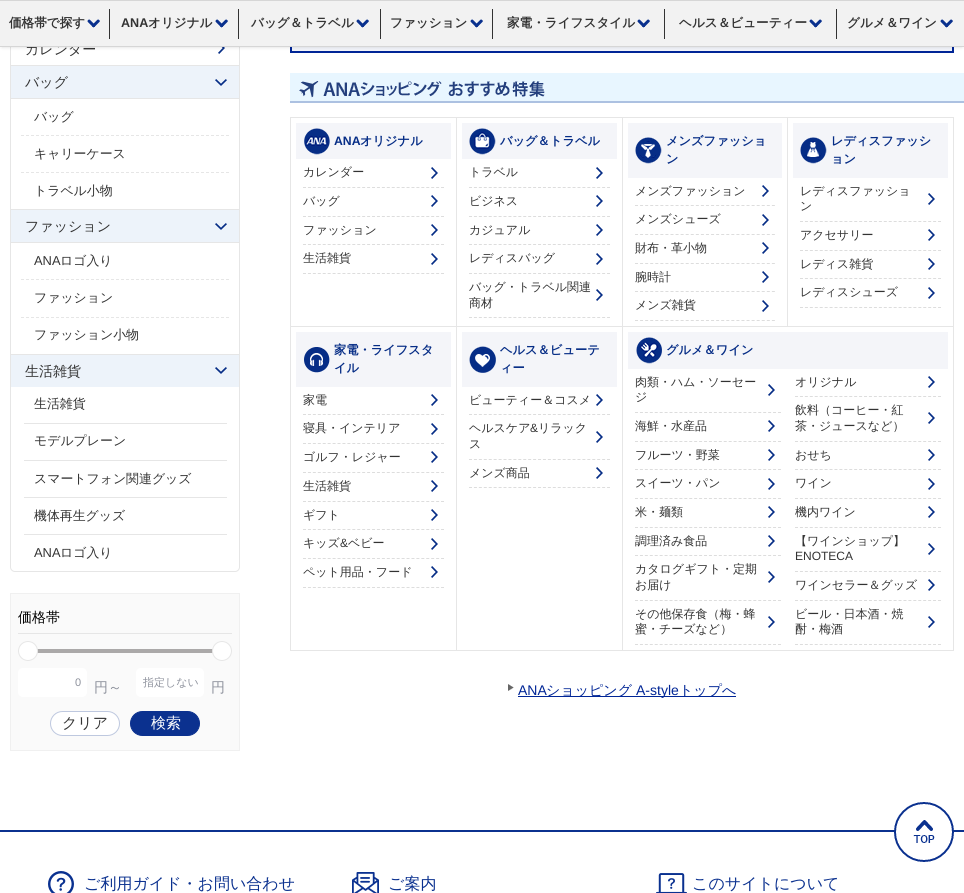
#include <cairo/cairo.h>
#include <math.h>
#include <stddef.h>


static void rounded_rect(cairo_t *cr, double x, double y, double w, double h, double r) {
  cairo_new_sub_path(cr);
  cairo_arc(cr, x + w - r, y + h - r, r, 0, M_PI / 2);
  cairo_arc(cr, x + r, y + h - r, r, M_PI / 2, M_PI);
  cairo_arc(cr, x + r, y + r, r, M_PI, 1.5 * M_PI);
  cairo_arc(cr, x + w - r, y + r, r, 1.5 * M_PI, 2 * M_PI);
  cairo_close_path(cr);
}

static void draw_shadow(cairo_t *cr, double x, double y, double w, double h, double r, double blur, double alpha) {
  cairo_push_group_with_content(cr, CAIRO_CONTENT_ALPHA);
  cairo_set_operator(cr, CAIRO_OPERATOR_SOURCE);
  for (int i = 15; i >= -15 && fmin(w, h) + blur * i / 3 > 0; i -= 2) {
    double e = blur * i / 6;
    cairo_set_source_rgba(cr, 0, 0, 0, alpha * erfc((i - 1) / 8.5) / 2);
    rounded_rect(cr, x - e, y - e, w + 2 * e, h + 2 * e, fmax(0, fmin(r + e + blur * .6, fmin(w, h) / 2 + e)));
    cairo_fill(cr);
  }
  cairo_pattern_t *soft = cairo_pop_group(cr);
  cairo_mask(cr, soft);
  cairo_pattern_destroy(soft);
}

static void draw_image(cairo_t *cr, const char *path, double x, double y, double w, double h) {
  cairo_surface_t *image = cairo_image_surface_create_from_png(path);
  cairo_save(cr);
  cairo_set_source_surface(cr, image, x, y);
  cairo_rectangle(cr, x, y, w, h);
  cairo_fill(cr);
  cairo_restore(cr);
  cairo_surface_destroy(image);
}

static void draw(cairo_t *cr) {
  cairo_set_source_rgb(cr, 1, 1, 1);
  cairo_paint(cr);
  cairo_new_path(cr);
  cairo_move_to(cr, 10.5, 32.5);
  cairo_line_to(cr, 239.5, 32.5);
  cairo_line_to(cr, 239.5, 567);
  cairo_curve_to(cr, 239.5, 569.5, 237.5, 571.5, 235, 571.5);
  cairo_line_to(cr, 15, 571.5);
  cairo_curve_to(cr, 12.5, 571.5, 10.5, 569.5, 10.5, 567);
  cairo_close_path(cr);
  cairo_set_source_rgb(cr, 230 / 255.0, 230 / 255.0, 230 / 255.0);
  cairo_set_line_width(cr, 1);
  cairo_stroke(cr);
  draw_image(cr, "images/2.png", 218, 47, 7, 7);
  cairo_set_source_rgb(cr, 242 / 255.0, 244 / 255.0, 250 / 255.0);
  cairo_rectangle(cr, 292, 47, 660, 4);
  cairo_fill(cr);
  cairo_rectangle(cr, 291, -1, 662, 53);
  cairo_set_source_rgb(cr, 0, 37 / 255.0, 150 / 255.0);
  cairo_set_line_width(cr, 2);
  cairo_stroke(cr);
  cairo_set_source_rgb(cr, 0, 0, 0);
  draw_shadow(cr, 2, 4, 960, 43, 0, 2, 0.15);
  cairo_set_source_rgb(cr, 214 / 255.0, 214 / 255.0, 214 / 255.0);
  cairo_rectangle(cr, 0, 0, 964, 1);
  cairo_fill(cr);
  cairo_set_source_rgb(cr, 230 / 255.0, 230 / 255.0, 230 / 255.0);
  cairo_rectangle(cr, 11, 65, 228, 1);
  cairo_fill(cr);
  cairo_set_source_rgb(cr, 237 / 255.0, 243 / 255.0, 250 / 255.0);
  cairo_rectangle(cr, 11, 66, 228, 32);
  cairo_fill(cr);
  cairo_set_source_rgb(cr, 230 / 255.0, 230 / 255.0, 230 / 255.0);
  cairo_rectangle(cr, 11, 98, 228, 1);
  cairo_fill(cr);
  draw_image(cr, "images/3.png", 215, 79, 12, 7);
  cairo_rectangle(cr, 11, 209, 228, 1);
  cairo_fill(cr);
  cairo_new_path(cr);
  cairo_move_to(cr, 21, 135.5);
  cairo_line_to(cr, 229, 135.5);
  cairo_set_line_width(cr, 1);
  cairo_set_dash(cr, (double[]){3, 2}, 2, 0);
  cairo_stroke(cr);
  cairo_new_path(cr);
  cairo_move_to(cr, 21, 172.5);
  cairo_line_to(cr, 229, 172.5);
  cairo_stroke(cr);
  cairo_set_source_rgb(cr, 237 / 255.0, 243 / 255.0, 250 / 255.0);
  cairo_rectangle(cr, 11, 210, 228, 32);
  cairo_fill(cr);
  cairo_set_source_rgb(cr, 230 / 255.0, 230 / 255.0, 230 / 255.0);
  cairo_rectangle(cr, 11, 242, 228, 1);
  cairo_fill(cr);
  draw_image(cr, "images/3.png", 215, 223, 12, 7);
  cairo_rectangle(cr, 11, 354, 228, 1);
  cairo_fill(cr);
  cairo_new_path(cr);
  cairo_move_to(cr, 21, 279.5);
  cairo_line_to(cr, 229, 279.5);
  cairo_stroke(cr);
  cairo_new_path(cr);
  cairo_move_to(cr, 21, 317.5);
  cairo_line_to(cr, 229, 317.5);
  cairo_stroke(cr);
  cairo_set_source_rgb(cr, 237 / 255.0, 243 / 255.0, 250 / 255.0);
  cairo_rectangle(cr, 11, 355, 228, 32);
  cairo_fill(cr);
  draw_image(cr, "images/3.png", 215, 367, 12, 7);
  cairo_set_source_rgb(cr, 230 / 255.0, 230 / 255.0, 230 / 255.0);
  cairo_rectangle(cr, 24, 423, 203, 1);
  cairo_fill(cr);
  cairo_rectangle(cr, 24, 460, 203, 1);
  cairo_fill(cr);
  cairo_rectangle(cr, 24, 497, 203, 1);
  cairo_fill(cr);
  cairo_rectangle(cr, 24, 534, 203, 1);
  cairo_fill(cr);
  cairo_set_source_rgb(cr, 250 / 255.0, 250 / 255.0, 250 / 255.0);
  cairo_rectangle(cr, 10.5, 593.5, 229, 157);
  cairo_fill_preserve(cr);
  cairo_set_source_rgb(cr, 240 / 255.0, 240 / 255.0, 240 / 255.0);
  cairo_set_dash(cr, NULL, 0, 0);
  cairo_stroke(cr);
  cairo_set_source_rgb(cr, 230 / 255.0, 230 / 255.0, 230 / 255.0);
  cairo_rectangle(cr, 18, 633, 214, 1);
  cairo_fill(cr);
  cairo_set_source_rgb(cr, 171 / 255.0, 169 / 255.0, 169 / 255.0);
  cairo_rectangle(cr, 37, 649, 176, 4);
  cairo_fill(cr);
  cairo_set_source_rgb(cr, 1, 1, 1);
  cairo_arc(cr, 28, 651, 9.5, 0, 2 * M_PI);
  cairo_fill_preserve(cr);
  cairo_set_source_rgb(cr, 230 / 255.0, 230 / 255.0, 230 / 255.0);
  cairo_stroke(cr);
  cairo_set_source_rgb(cr, 1, 1, 1);
  cairo_arc(cr, 222, 651, 9.5, 0, 2 * M_PI);
  cairo_fill_preserve(cr);
  cairo_set_source_rgb(cr, 230 / 255.0, 230 / 255.0, 230 / 255.0);
  cairo_stroke(cr);
  cairo_set_source_rgb(cr, 1, 1, 1);
  rounded_rect(cr, 18, 668, 69, 29, 5);
  cairo_fill(cr);
  rounded_rect(cr, 136, 668, 68, 29, 5);
  cairo_fill(cr);
  rounded_rect(cr, 50.5, 711.5, 69, 24, 12);
  cairo_fill_preserve(cr);
  cairo_set_source_rgb(cr, 190 / 255.0, 200 / 255.0, 223 / 255.0);
  cairo_stroke(cr);
  cairo_set_source_rgb(cr, 11 / 255.0, 49 / 255.0, 143 / 255.0);
  rounded_rect(cr, 130.5, 711.5, 69, 24, 12);
  cairo_fill_preserve(cr);
  cairo_stroke(cr);
  cairo_set_source_rgb(cr, 232 / 255.0, 246 / 255.0, 1);
  cairo_rectangle(cr, 290, 73, 674, 8);
  cairo_fill(cr);
  draw_image(cr, "images/4.png", 290, 81, 674, 22);
  cairo_set_source_rgb(cr, 230 / 255.0, 230 / 255.0, 230 / 255.0);
  cairo_rectangle(cr, 290, 117, 664, 1);
  cairo_fill(cr);
  cairo_rectangle(cr, 290, 117, 1, 534);
  cairo_fill(cr);
  cairo_rectangle(cr, 456, 118, 1, 533);
  cairo_fill(cr);
  cairo_rectangle(cr, 291, 326, 166, 1);
  cairo_fill(cr);
  cairo_set_source_rgb(cr, 244 / 255.0, 245 / 255.0, 249 / 255.0);
  cairo_rectangle(cr, 296, 123, 155, 36);
  cairo_fill(cr);
  draw_image(cr, "images/5.png", 304, 128, 26, 27);
  cairo_new_path(cr);
  cairo_move_to(cr, 303, 187.5);
  cairo_line_to(cr, 444, 187.5);
  cairo_set_source_rgb(cr, 221 / 255.0, 221 / 255.0, 221 / 255.0);
  cairo_set_dash(cr, (double[]){3, 1.93}, 2, 0);
  cairo_stroke(cr);
  draw_image(cr, "images/6.png", 431, 167, 7, 12);
  cairo_new_path(cr);
  cairo_move_to(cr, 303, 216.5);
  cairo_line_to(cr, 444, 216.5);
  cairo_stroke(cr);
  draw_image(cr, "images/6.png", 431, 195, 7, 12);
  cairo_new_path(cr);
  cairo_move_to(cr, 303, 244.5);
  cairo_line_to(cr, 444, 244.5);
  cairo_stroke(cr);
  draw_image(cr, "images/6.png", 431, 224, 7, 12);
  cairo_new_path(cr);
  cairo_move_to(cr, 303, 273.5);
  cairo_line_to(cr, 444, 273.5);
  cairo_stroke(cr);
  draw_image(cr, "images/6.png", 431, 253, 7, 12);
  cairo_set_source_rgb(cr, 230 / 255.0, 230 / 255.0, 230 / 255.0);
  cairo_rectangle(cr, 622, 118, 1, 533);
  cairo_fill(cr);
  cairo_rectangle(cr, 457, 326, 166, 1);
  cairo_fill(cr);
  cairo_set_source_rgb(cr, 244 / 255.0, 245 / 255.0, 249 / 255.0);
  cairo_rectangle(cr, 462, 123, 155, 36);
  cairo_fill(cr);
  draw_image(cr, "images/7.png", 469, 128, 27, 27);
  cairo_new_path(cr);
  cairo_move_to(cr, 469, 187.5);
  cairo_line_to(cr, 610, 187.5);
  cairo_set_source_rgb(cr, 221 / 255.0, 221 / 255.0, 221 / 255.0);
  cairo_stroke(cr);
  draw_image(cr, "images/6.png", 596, 167, 7, 12);
  cairo_new_path(cr);
  cairo_move_to(cr, 469, 216.5);
  cairo_line_to(cr, 610, 216.5);
  cairo_stroke(cr);
  draw_image(cr, "images/6.png", 596, 195, 7, 12);
  cairo_new_path(cr);
  cairo_move_to(cr, 469, 244.5);
  cairo_line_to(cr, 610, 244.5);
  cairo_stroke(cr);
  draw_image(cr, "images/6.png", 596, 224, 7, 12);
  cairo_new_path(cr);
  cairo_move_to(cr, 469, 273.5);
  cairo_line_to(cr, 610, 273.5);
  cairo_stroke(cr);
  draw_image(cr, "images/6.png", 596, 253, 7, 12);
  cairo_new_path(cr);
  cairo_move_to(cr, 469, 317.5);
  cairo_line_to(cr, 610, 317.5);
  cairo_stroke(cr);
  draw_image(cr, "images/6.png", 596, 289, 7, 12);
  cairo_set_source_rgb(cr, 230 / 255.0, 230 / 255.0, 230 / 255.0);
  cairo_rectangle(cr, 787, 118, 1, 209);
  cairo_fill(cr);
  cairo_rectangle(cr, 623, 326, 165, 1);
  cairo_fill(cr);
  cairo_set_source_rgb(cr, 244 / 255.0, 245 / 255.0, 249 / 255.0);
  cairo_rectangle(cr, 628, 123, 154, 55);
  cairo_fill(cr);
  draw_image(cr, "images/8.png", 635, 137, 27, 27);
  cairo_new_path(cr);
  cairo_move_to(cr, 635, 205.5);
  cairo_line_to(cr, 775, 205.5);
  cairo_set_source_rgb(cr, 221 / 255.0, 221 / 255.0, 221 / 255.0);
  cairo_set_dash(cr, (double[]){3, 2.07}, 2, 0);
  cairo_stroke(cr);
  draw_image(cr, "images/6.png", 762, 185, 7, 12);
  cairo_new_path(cr);
  cairo_move_to(cr, 635, 234.5);
  cairo_line_to(cr, 775, 234.5);
  cairo_stroke(cr);
  draw_image(cr, "images/6.png", 762, 214, 7, 12);
  cairo_new_path(cr);
  cairo_move_to(cr, 635, 263.5);
  cairo_line_to(cr, 775, 263.5);
  cairo_stroke(cr);
  draw_image(cr, "images/6.png", 762, 242, 7, 12);
  cairo_new_path(cr);
  cairo_move_to(cr, 635, 291.5);
  cairo_line_to(cr, 775, 291.5);
  cairo_stroke(cr);
  draw_image(cr, "images/6.png", 762, 271, 7, 12);
  cairo_new_path(cr);
  cairo_move_to(cr, 635, 320.5);
  cairo_line_to(cr, 775, 320.5);
  cairo_stroke(cr);
  draw_image(cr, "images/6.png", 762, 300, 7, 12);
  cairo_set_source_rgb(cr, 230 / 255.0, 230 / 255.0, 230 / 255.0);
  cairo_rectangle(cr, 953, 118, 1, 533);
  cairo_fill(cr);
  cairo_rectangle(cr, 788, 326, 166, 1);
  cairo_fill(cr);
  cairo_set_source_rgb(cr, 244 / 255.0, 245 / 255.0, 249 / 255.0);
  cairo_rectangle(cr, 793, 123, 155, 55);
  cairo_fill(cr);
  draw_image(cr, "images/9.png", 800, 137, 27, 27);
  cairo_new_path(cr);
  cairo_move_to(cr, 800, 221.5);
  cairo_line_to(cr, 941, 221.5);
  cairo_set_source_rgb(cr, 221 / 255.0, 221 / 255.0, 221 / 255.0);
  cairo_set_dash(cr, (double[]){3, 1.93}, 2, 0);
  cairo_stroke(cr);
  draw_image(cr, "images/6.png", 928, 193, 7, 12);
  cairo_new_path(cr);
  cairo_move_to(cr, 800, 250.5);
  cairo_line_to(cr, 941, 250.5);
  cairo_stroke(cr);
  draw_image(cr, "images/6.png", 928, 229, 7, 12);
  cairo_new_path(cr);
  cairo_move_to(cr, 800, 278.5);
  cairo_line_to(cr, 941, 278.5);
  cairo_stroke(cr);
  draw_image(cr, "images/6.png", 928, 258, 7, 12);
  cairo_new_path(cr);
  cairo_move_to(cr, 800, 307.5);
  cairo_line_to(cr, 941, 307.5);
  cairo_stroke(cr);
  draw_image(cr, "images/6.png", 928, 287, 7, 12);
  cairo_set_source_rgb(cr, 230 / 255.0, 230 / 255.0, 230 / 255.0);
  cairo_rectangle(cr, 291, 650, 663, 1);
  cairo_fill(cr);
  cairo_set_source_rgb(cr, 244 / 255.0, 245 / 255.0, 249 / 255.0);
  cairo_rectangle(cr, 296, 332, 155, 55);
  cairo_fill(cr);
  draw_image(cr, "images/10.png", 304, 347, 26, 26);
  cairo_new_path(cr);
  cairo_move_to(cr, 303, 414.5);
  cairo_line_to(cr, 444, 414.5);
  cairo_set_source_rgb(cr, 221 / 255.0, 221 / 255.0, 221 / 255.0);
  cairo_stroke(cr);
  draw_image(cr, "images/6.png", 431, 394, 7, 12);
  cairo_new_path(cr);
  cairo_move_to(cr, 303, 443.5);
  cairo_line_to(cr, 444, 443.5);
  cairo_stroke(cr);
  draw_image(cr, "images/6.png", 431, 423, 7, 12);
  cairo_new_path(cr);
  cairo_move_to(cr, 303, 472.5);
  cairo_line_to(cr, 444, 472.5);
  cairo_stroke(cr);
  draw_image(cr, "images/6.png", 431, 451, 7, 12);
  cairo_new_path(cr);
  cairo_move_to(cr, 303, 501.5);
  cairo_line_to(cr, 444, 501.5);
  cairo_stroke(cr);
  draw_image(cr, "images/6.png", 431, 480, 7, 12);
  cairo_new_path(cr);
  cairo_move_to(cr, 303, 529.5);
  cairo_line_to(cr, 444, 529.5);
  cairo_stroke(cr);
  draw_image(cr, "images/6.png", 431, 509, 7, 12);
  cairo_new_path(cr);
  cairo_move_to(cr, 303, 558.5);
  cairo_line_to(cr, 444, 558.5);
  cairo_stroke(cr);
  draw_image(cr, "images/6.png", 431, 538, 7, 12);
  cairo_new_path(cr);
  cairo_move_to(cr, 303, 587.5);
  cairo_line_to(cr, 444, 587.5);
  cairo_stroke(cr);
  draw_image(cr, "images/6.png", 431, 566, 7, 12);
  cairo_set_source_rgb(cr, 244 / 255.0, 245 / 255.0, 249 / 255.0);
  cairo_rectangle(cr, 462, 332, 155, 55);
  cairo_fill(cr);
  draw_image(cr, "images/11.png", 469, 346, 27, 27);
  cairo_new_path(cr);
  cairo_move_to(cr, 469, 414.5);
  cairo_line_to(cr, 610, 414.5);
  cairo_set_source_rgb(cr, 221 / 255.0, 221 / 255.0, 221 / 255.0);
  cairo_stroke(cr);
  draw_image(cr, "images/6.png", 596, 394, 7, 12);
  cairo_new_path(cr);
  cairo_move_to(cr, 469, 459.5);
  cairo_line_to(cr, 610, 459.5);
  cairo_stroke(cr);
  draw_image(cr, "images/6.png", 596, 431, 7, 12);
  cairo_new_path(cr);
  cairo_move_to(cr, 469, 487.5);
  cairo_line_to(cr, 610, 487.5);
  cairo_stroke(cr);
  draw_image(cr, "images/6.png", 596, 467, 7, 12);
  cairo_set_source_rgb(cr, 244 / 255.0, 245 / 255.0, 249 / 255.0);
  cairo_rectangle(cr, 628, 332, 320, 37);
  cairo_fill(cr);
  draw_image(cr, "images/12.png", 636, 337, 26, 27);
  cairo_new_path(cr);
  cairo_move_to(cr, 635, 412.5);
  cairo_line_to(cr, 781, 412.5);
  cairo_set_source_rgb(cr, 221 / 255.0, 221 / 255.0, 221 / 255.0);
  cairo_stroke(cr);
  draw_image(cr, "images/6.png", 768, 384, 7, 12);
  cairo_new_path(cr);
  cairo_move_to(cr, 635, 441.5);
  cairo_line_to(cr, 781, 441.5);
  cairo_stroke(cr);
  draw_image(cr, "images/6.png", 768, 420, 7, 12);
  cairo_new_path(cr);
  cairo_move_to(cr, 635, 469.5);
  cairo_line_to(cr, 781, 469.5);
  cairo_stroke(cr);
  draw_image(cr, "images/6.png", 768, 449, 7, 12);
  cairo_new_path(cr);
  cairo_move_to(cr, 635, 498.5);
  cairo_line_to(cr, 781, 498.5);
  cairo_stroke(cr);
  draw_image(cr, "images/6.png", 768, 478, 7, 12);
  cairo_new_path(cr);
  cairo_move_to(cr, 635, 527.5);
  cairo_line_to(cr, 781, 527.5);
  cairo_stroke(cr);
  draw_image(cr, "images/6.png", 768, 506, 7, 12);
  cairo_new_path(cr);
  cairo_move_to(cr, 635, 555.5);
  cairo_line_to(cr, 781, 555.5);
  cairo_stroke(cr);
  draw_image(cr, "images/6.png", 768, 535, 7, 12);
  cairo_new_path(cr);
  cairo_move_to(cr, 635, 600.5);
  cairo_line_to(cr, 781, 600.5);
  cairo_stroke(cr);
  draw_image(cr, "images/6.png", 768, 571, 7, 12);
  cairo_new_path(cr);
  cairo_move_to(cr, 635, 644.5);
  cairo_line_to(cr, 781, 644.5);
  cairo_stroke(cr);
  draw_image(cr, "images/6.png", 768, 616, 7, 12);
  cairo_new_path(cr);
  cairo_move_to(cr, 795, 396.5);
  cairo_line_to(cr, 941, 396.5);
  cairo_stroke(cr);
  draw_image(cr, "images/6.png", 928, 376, 7, 12);
  cairo_new_path(cr);
  cairo_move_to(cr, 795, 441.5);
  cairo_line_to(cr, 941, 441.5);
  cairo_stroke(cr);
  draw_image(cr, "images/6.png", 928, 412, 7, 12);
  cairo_new_path(cr);
  cairo_move_to(cr, 795, 469.5);
  cairo_line_to(cr, 941, 469.5);
  cairo_stroke(cr);
  draw_image(cr, "images/6.png", 928, 449, 7, 12);
  cairo_new_path(cr);
  cairo_move_to(cr, 795, 498.5);
  cairo_line_to(cr, 941, 498.5);
  cairo_stroke(cr);
  draw_image(cr, "images/6.png", 928, 478, 7, 12);
  cairo_new_path(cr);
  cairo_move_to(cr, 795, 527.5);
  cairo_line_to(cr, 941, 527.5);
  cairo_stroke(cr);
  draw_image(cr, "images/6.png", 928, 506, 7, 12);
  cairo_new_path(cr);
  cairo_move_to(cr, 795, 571.5);
  cairo_line_to(cr, 941, 571.5);
  cairo_stroke(cr);
  draw_image(cr, "images/6.png", 928, 543, 7, 12);
  cairo_new_path(cr);
  cairo_move_to(cr, 795, 600.5);
  cairo_line_to(cr, 941, 600.5);
  cairo_stroke(cr);
  draw_image(cr, "images/6.png", 928, 579, 7, 12);
  cairo_new_path(cr);
  cairo_move_to(cr, 795, 644.5);
  cairo_line_to(cr, 941, 644.5);
  cairo_stroke(cr);
  draw_image(cr, "images/6.png", 928, 616, 7, 12);
  draw_image(cr, "images/13.png", 508, 684, 6, 7);
  cairo_set_source_rgb(cr, 0, 37 / 255.0, 150 / 255.0);
  cairo_rectangle(cr, 518, 696, 218, 1);
  cairo_fill(cr);
  cairo_set_source_rgb(cr, 11 / 255.0, 49 / 255.0, 143 / 255.0);
  cairo_rectangle(cr, 0, 830, 964, 2);
  cairo_fill(cr);
  draw_image(cr, "images/14.png", 894, 802, 60, 60);
  draw_image(cr, "images/15.png", 48, 871, 26, 22);
  draw_image(cr, "images/16.png", 352, 872, 27, 21);
  draw_image(cr, "images/17.png", 656, 873, 31, 20);
  cairo_select_font_face(cr, "WenQuanYi Zen Hei Medium", CAIRO_FONT_SLANT_NORMAL, CAIRO_FONT_WEIGHT_NORMAL);
  cairo_set_font_size(cr, 14);
  cairo_set_source_rgb(cr, 51 / 255.0, 51 / 255.0, 51 / 255.0);
  cairo_move_to(cr, 25, 54);
  cairo_show_text(cr, "カレンダー");
  cairo_set_source_rgb(cr, 242 / 255.0, 242 / 255.0, 242 / 255.0);
  cairo_rectangle(cr, 0, 1, 964, 45);
  cairo_fill(cr);
  cairo_set_source_rgb(cr, 51 / 255.0, 51 / 255.0, 51 / 255.0);
  cairo_rectangle(cr, 836, 9, 1, 30);
  cairo_fill(cr);
  draw_image(cr, "images/1.png", 940, 19, 13, 9);
  cairo_select_font_face(cr, "WenQuanYi Zen Hei", CAIRO_FONT_SLANT_NORMAL, CAIRO_FONT_WEIGHT_BOLD);
  cairo_set_font_size(cr, 12.6);
  cairo_move_to(cr, 847, 27);
  cairo_show_text(cr, "グルメ＆ワイン");
  cairo_rectangle(cr, 664, 9, 1, 30);
  cairo_fill(cr);
  draw_image(cr, "images/1.png", 809, 19, 13, 9);
  cairo_move_to(cr, 679, 27);
  cairo_show_text(cr, "ヘルス＆ビューティー");
  cairo_rectangle(cr, 492, 9, 1, 30);
  cairo_fill(cr);
  draw_image(cr, "images/1.png", 637, 19, 13, 9);
  cairo_move_to(cr, 507, 27);
  cairo_show_text(cr, "家電・ライフスタイル");
  cairo_rectangle(cr, 380, 9, 1, 30);
  cairo_fill(cr);
  draw_image(cr, "images/1.png", 470, 19, 13, 9);
  cairo_move_to(cr, 390, 27);
  cairo_show_text(cr, "ファッション");
  cairo_rectangle(cr, 238, 9, 1, 30);
  cairo_fill(cr);
  draw_image(cr, "images/1.png", 356, 19, 13, 9);
  cairo_move_to(cr, 251, 27);
  cairo_show_text(cr, "バッグ＆トラベル");
  cairo_rectangle(cr, 109, 9, 1, 30);
  cairo_fill(cr);
  draw_image(cr, "images/1.png", 215, 19, 13, 9);
  cairo_move_to(cr, 148, 27);
  cairo_show_text(cr, "オリジナル");
  cairo_select_font_face(cr, "Liberation Sans", CAIRO_FONT_SLANT_NORMAL, CAIRO_FONT_WEIGHT_BOLD);
  cairo_move_to(cr, 121, 27);
  cairo_show_text(cr, "ANA");
  draw_image(cr, "images/1.png", 87, 19, 13, 9);
  cairo_select_font_face(cr, "WenQuanYi Zen Hei", CAIRO_FONT_SLANT_NORMAL, CAIRO_FONT_WEIGHT_BOLD);
  cairo_move_to(cr, 9, 27);
  cairo_show_text(cr, "価格帯で探す");
  cairo_set_source_rgb(cr, 214 / 255.0, 214 / 255.0, 214 / 255.0);
  cairo_rectangle(cr, 0, 46, 964, 1);
  cairo_fill(cr);
  cairo_select_font_face(cr, "WenQuanYi Zen Hei Medium", CAIRO_FONT_SLANT_NORMAL, CAIRO_FONT_WEIGHT_NORMAL);
  cairo_set_font_size(cr, 14);
  cairo_set_source_rgb(cr, 51 / 255.0, 51 / 255.0, 51 / 255.0);
  cairo_move_to(cr, 25, 87);
  cairo_show_text(cr, "バッグ");
  cairo_set_font_size(cr, 12.9);
  cairo_move_to(cr, 34, 121);
  cairo_show_text(cr, "バッグ");
  cairo_move_to(cr, 34, 158);
  cairo_show_text(cr, "キャリーケース");
  cairo_move_to(cr, 34, 195);
  cairo_show_text(cr, "トラベル小物");
  cairo_set_font_size(cr, 14);
  cairo_move_to(cr, 25, 231);
  cairo_show_text(cr, "ファッション");
  cairo_select_font_face(cr, "Liberation Sans", CAIRO_FONT_SLANT_NORMAL, CAIRO_FONT_WEIGHT_NORMAL);
  cairo_set_font_size(cr, 12.9);
  cairo_move_to(cr, 34, 265);
  cairo_show_text(cr, "ANA");
  cairo_select_font_face(cr, "WenQuanYi Zen Hei Medium", CAIRO_FONT_SLANT_NORMAL, CAIRO_FONT_WEIGHT_NORMAL);
  cairo_move_to(cr, 60, 265);
  cairo_show_text(cr, "ロゴ入り");
  cairo_move_to(cr, 34, 302);
  cairo_show_text(cr, "ファッション");
  cairo_move_to(cr, 34, 339);
  cairo_show_text(cr, "ファッション小物");
  cairo_set_font_size(cr, 14);
  cairo_move_to(cr, 25, 376);
  cairo_show_text(cr, "生活雑貨");
  cairo_set_font_size(cr, 12.9);
  cairo_move_to(cr, 34, 408);
  cairo_show_text(cr, "生活雑貨");
  cairo_move_to(cr, 34, 445);
  cairo_show_text(cr, "モデルプレーン");
  cairo_move_to(cr, 34, 483);
  cairo_show_text(cr, "スマートフォン関連グッズ");
  cairo_move_to(cr, 34, 520);
  cairo_show_text(cr, "機体再生グッズ");
  cairo_select_font_face(cr, "Liberation Sans", CAIRO_FONT_SLANT_NORMAL, CAIRO_FONT_WEIGHT_NORMAL);
  cairo_move_to(cr, 34, 557);
  cairo_show_text(cr, "ANA");
  cairo_select_font_face(cr, "WenQuanYi Zen Hei Medium", CAIRO_FONT_SLANT_NORMAL, CAIRO_FONT_WEIGHT_NORMAL);
  cairo_move_to(cr, 60, 557);
  cairo_show_text(cr, "ロゴ入り");
  cairo_set_font_size(cr, 14);
  cairo_set_source_rgb(cr, 0, 0, 0);
  cairo_move_to(cr, 18, 622);
  cairo_show_text(cr, "価格帯");
  cairo_select_font_face(cr, "Liberation Sans", CAIRO_FONT_SLANT_NORMAL, CAIRO_FONT_WEIGHT_NORMAL);
  cairo_set_font_size(cr, 11);
  cairo_set_source_rgb(cr, 141 / 255.0, 145 / 255.0, 156 / 255.0);
  cairo_move_to(cr, 75, 686);
  cairo_show_text(cr, "0");
  cairo_select_font_face(cr, "WenQuanYi Zen Hei Medium", CAIRO_FONT_SLANT_NORMAL, CAIRO_FONT_WEIGHT_NORMAL);
  cairo_set_font_size(cr, 14);
  cairo_move_to(cr, 94, 692);
  cairo_show_text(cr, "円～");
  cairo_set_font_size(cr, 11);
  cairo_move_to(cr, 143, 686);
  cairo_show_text(cr, "指定しない");
  cairo_set_font_size(cr, 14);
  cairo_move_to(cr, 211, 692);
  cairo_show_text(cr, "円");
  cairo_set_font_size(cr, 15);
  cairo_set_source_rgb(cr, 51 / 255.0, 51 / 255.0, 51 / 255.0);
  cairo_move_to(cr, 62, 728);
  cairo_show_text(cr, "クリア");
  cairo_set_source_rgb(cr, 1, 1, 1);
  cairo_move_to(cr, 151, 728);
  cairo_show_text(cr, "検索");
  cairo_select_font_face(cr, "Liberation Sans", CAIRO_FONT_SLANT_NORMAL, CAIRO_FONT_WEIGHT_BOLD);
  cairo_set_font_size(cr, 12.25);
  cairo_set_source_rgb(cr, 6 / 255.0, 45 / 255.0, 134 / 255.0);
  cairo_move_to(cr, 334, 145);
  cairo_show_text(cr, "ANA");
  cairo_select_font_face(cr, "WenQuanYi Zen Hei", CAIRO_FONT_SLANT_NORMAL, CAIRO_FONT_WEIGHT_BOLD);
  cairo_move_to(cr, 360, 145);
  cairo_show_text(cr, "オリジナル");
  cairo_select_font_face(cr, "WenQuanYi Zen Hei Medium", CAIRO_FONT_SLANT_NORMAL, CAIRO_FONT_WEIGHT_NORMAL);
  cairo_set_font_size(cr, 12);
  cairo_set_source_rgb(cr, 51 / 255.0, 51 / 255.0, 51 / 255.0);
  cairo_move_to(cr, 303, 176);
  cairo_show_text(cr, "カレンダー");
  cairo_move_to(cr, 303, 205);
  cairo_show_text(cr, "バッグ");
  cairo_move_to(cr, 303, 234);
  cairo_show_text(cr, "ファッション");
  cairo_move_to(cr, 303, 262);
  cairo_show_text(cr, "生活雑貨");
  cairo_select_font_face(cr, "WenQuanYi Zen Hei", CAIRO_FONT_SLANT_NORMAL, CAIRO_FONT_WEIGHT_BOLD);
  cairo_set_font_size(cr, 12.25);
  cairo_set_source_rgb(cr, 6 / 255.0, 45 / 255.0, 134 / 255.0);
  cairo_move_to(cr, 500, 145);
  cairo_show_text(cr, "バッグ＆トラベル");
  cairo_select_font_face(cr, "WenQuanYi Zen Hei Medium", CAIRO_FONT_SLANT_NORMAL, CAIRO_FONT_WEIGHT_NORMAL);
  cairo_set_font_size(cr, 12);
  cairo_set_source_rgb(cr, 51 / 255.0, 51 / 255.0, 51 / 255.0);
  cairo_move_to(cr, 469, 176);
  cairo_show_text(cr, "トラベル");
  cairo_move_to(cr, 469, 205);
  cairo_show_text(cr, "ビジネス");
  cairo_move_to(cr, 469, 234);
  cairo_show_text(cr, "カジュアル");
  cairo_move_to(cr, 469, 262);
  cairo_show_text(cr, "レディスバッグ");
  cairo_move_to(cr, 469, 291);
  cairo_show_text(cr, "バッグ・トラベル関連");
  cairo_move_to(cr, 469, 307);
  cairo_show_text(cr, "商材");
  cairo_select_font_face(cr, "WenQuanYi Zen Hei", CAIRO_FONT_SLANT_NORMAL, CAIRO_FONT_WEIGHT_BOLD);
  cairo_set_font_size(cr, 12.25);
  cairo_set_source_rgb(cr, 6 / 255.0, 45 / 255.0, 134 / 255.0);
  cairo_move_to(cr, 666, 145);
  cairo_show_text(cr, "メンズファッショ");
  cairo_move_to(cr, 666, 163);
  cairo_show_text(cr, "ン");
  cairo_select_font_face(cr, "WenQuanYi Zen Hei Medium", CAIRO_FONT_SLANT_NORMAL, CAIRO_FONT_WEIGHT_NORMAL);
  cairo_set_font_size(cr, 12);
  cairo_set_source_rgb(cr, 51 / 255.0, 51 / 255.0, 51 / 255.0);
  cairo_move_to(cr, 635, 195);
  cairo_show_text(cr, "メンズファッション");
  cairo_move_to(cr, 635, 223);
  cairo_show_text(cr, "メンズシューズ");
  cairo_move_to(cr, 635, 252);
  cairo_show_text(cr, "財布・革小物");
  cairo_move_to(cr, 635, 281);
  cairo_show_text(cr, "腕時計");
  cairo_move_to(cr, 635, 309);
  cairo_show_text(cr, "メンズ雑貨");
  cairo_select_font_face(cr, "WenQuanYi Zen Hei", CAIRO_FONT_SLANT_NORMAL, CAIRO_FONT_WEIGHT_BOLD);
  cairo_set_font_size(cr, 12.25);
  cairo_set_source_rgb(cr, 6 / 255.0, 45 / 255.0, 134 / 255.0);
  cairo_move_to(cr, 831, 145);
  cairo_show_text(cr, "レディスファッシ");
  cairo_move_to(cr, 831, 163);
  cairo_show_text(cr, "ョン");
  cairo_select_font_face(cr, "WenQuanYi Zen Hei Medium", CAIRO_FONT_SLANT_NORMAL, CAIRO_FONT_WEIGHT_NORMAL);
  cairo_set_font_size(cr, 12);
  cairo_set_source_rgb(cr, 51 / 255.0, 51 / 255.0, 51 / 255.0);
  cairo_move_to(cr, 800, 195);
  cairo_show_text(cr, "レディスファッショ");
  cairo_move_to(cr, 800, 210);
  cairo_show_text(cr, "ン");
  cairo_move_to(cr, 800, 239);
  cairo_show_text(cr, "アクセサリー");
  cairo_move_to(cr, 800, 268);
  cairo_show_text(cr, "レディス雑貨");
  cairo_move_to(cr, 800, 296);
  cairo_show_text(cr, "レディスシューズ");
  cairo_select_font_face(cr, "WenQuanYi Zen Hei", CAIRO_FONT_SLANT_NORMAL, CAIRO_FONT_WEIGHT_BOLD);
  cairo_set_font_size(cr, 12.25);
  cairo_set_source_rgb(cr, 6 / 255.0, 45 / 255.0, 134 / 255.0);
  cairo_move_to(cr, 334, 354);
  cairo_show_text(cr, "家電・ライフスタ");
  cairo_move_to(cr, 334, 372);
  cairo_show_text(cr, "イル");
  cairo_select_font_face(cr, "WenQuanYi Zen Hei Medium", CAIRO_FONT_SLANT_NORMAL, CAIRO_FONT_WEIGHT_NORMAL);
  cairo_set_font_size(cr, 12);
  cairo_set_source_rgb(cr, 51 / 255.0, 51 / 255.0, 51 / 255.0);
  cairo_move_to(cr, 303, 404);
  cairo_show_text(cr, "家電");
  cairo_move_to(cr, 303, 432);
  cairo_show_text(cr, "寝具・インテリア");
  cairo_move_to(cr, 303, 461);
  cairo_show_text(cr, "ゴルフ・レジャー");
  cairo_move_to(cr, 303, 490);
  cairo_show_text(cr, "生活雑貨");
  cairo_move_to(cr, 303, 519);
  cairo_show_text(cr, "ギフト");
  cairo_move_to(cr, 303, 547);
  cairo_show_text(cr, "キッズ");
  cairo_select_font_face(cr, "Liberation Sans", CAIRO_FONT_SLANT_NORMAL, CAIRO_FONT_WEIGHT_NORMAL);
  cairo_move_to(cr, 340, 547);
  cairo_show_text(cr, "&");
  cairo_select_font_face(cr, "WenQuanYi Zen Hei Medium", CAIRO_FONT_SLANT_NORMAL, CAIRO_FONT_WEIGHT_NORMAL);
  cairo_move_to(cr, 348, 547);
  cairo_show_text(cr, "ベビー");
  cairo_move_to(cr, 303, 576);
  cairo_show_text(cr, "ペット用品・フード");
  cairo_select_font_face(cr, "WenQuanYi Zen Hei", CAIRO_FONT_SLANT_NORMAL, CAIRO_FONT_WEIGHT_BOLD);
  cairo_set_font_size(cr, 12.25);
  cairo_set_source_rgb(cr, 6 / 255.0, 45 / 255.0, 134 / 255.0);
  cairo_move_to(cr, 500, 354);
  cairo_show_text(cr, "ヘルス＆ビューテ");
  cairo_move_to(cr, 500, 372);
  cairo_show_text(cr, "ィー");
  cairo_select_font_face(cr, "WenQuanYi Zen Hei Medium", CAIRO_FONT_SLANT_NORMAL, CAIRO_FONT_WEIGHT_NORMAL);
  cairo_set_font_size(cr, 12);
  cairo_set_source_rgb(cr, 51 / 255.0, 51 / 255.0, 51 / 255.0);
  cairo_move_to(cr, 469, 404);
  cairo_show_text(cr, "ビューティー＆コスメ");
  cairo_move_to(cr, 469, 432);
  cairo_show_text(cr, "ヘルスケア");
  cairo_select_font_face(cr, "Liberation Sans", CAIRO_FONT_SLANT_NORMAL, CAIRO_FONT_WEIGHT_NORMAL);
  cairo_move_to(cr, 530, 432);
  cairo_show_text(cr, "&");
  cairo_select_font_face(cr, "WenQuanYi Zen Hei Medium", CAIRO_FONT_SLANT_NORMAL, CAIRO_FONT_WEIGHT_NORMAL);
  cairo_move_to(cr, 538, 432);
  cairo_show_text(cr, "リラック");
  cairo_move_to(cr, 469, 448);
  cairo_show_text(cr, "ス");
  cairo_move_to(cr, 469, 477);
  cairo_show_text(cr, "メンズ商品");
  cairo_select_font_face(cr, "WenQuanYi Zen Hei", CAIRO_FONT_SLANT_NORMAL, CAIRO_FONT_WEIGHT_BOLD);
  cairo_set_font_size(cr, 12.25);
  cairo_set_source_rgb(cr, 6 / 255.0, 45 / 255.0, 134 / 255.0);
  cairo_move_to(cr, 666, 354);
  cairo_show_text(cr, "グルメ＆ワイン");
  cairo_select_font_face(cr, "WenQuanYi Zen Hei Medium", CAIRO_FONT_SLANT_NORMAL, CAIRO_FONT_WEIGHT_NORMAL);
  cairo_set_font_size(cr, 12);
  cairo_set_source_rgb(cr, 51 / 255.0, 51 / 255.0, 51 / 255.0);
  cairo_move_to(cr, 635, 386);
  cairo_show_text(cr, "肉類・ハム・ソーセー");
  cairo_move_to(cr, 635, 401);
  cairo_show_text(cr, "ジ");
  cairo_move_to(cr, 635, 430);
  cairo_show_text(cr, "海鮮・水産品");
  cairo_move_to(cr, 635, 459);
  cairo_show_text(cr, "フルーツ・野菜");
  cairo_move_to(cr, 635, 487);
  cairo_show_text(cr, "スイーツ・パン");
  cairo_move_to(cr, 635, 516);
  cairo_show_text(cr, "米・麺類");
  cairo_move_to(cr, 635, 545);
  cairo_show_text(cr, "調理済み食品");
  cairo_move_to(cr, 635, 573);
  cairo_show_text(cr, "カタログギフト・定期");
  cairo_move_to(cr, 635, 589);
  cairo_show_text(cr, "お届け");
  cairo_move_to(cr, 635, 618);
  cairo_show_text(cr, "その他保存食（梅・蜂");
  cairo_move_to(cr, 635, 633);
  cairo_show_text(cr, "蜜・チーズなど）");
  cairo_move_to(cr, 795, 386);
  cairo_show_text(cr, "オリジナル");
  cairo_move_to(cr, 795, 414);
  cairo_show_text(cr, "飲料（コーヒー・紅");
  cairo_move_to(cr, 795, 430);
  cairo_show_text(cr, "茶・ジュースなど）");
  cairo_move_to(cr, 795, 459);
  cairo_show_text(cr, "おせち");
  cairo_move_to(cr, 795, 487);
  cairo_show_text(cr, "ワイン");
  cairo_move_to(cr, 795, 516);
  cairo_show_text(cr, "機内ワイン");
  cairo_move_to(cr, 795, 545);
  cairo_show_text(cr, "【ワインショップ】");
  cairo_select_font_face(cr, "Liberation Sans", CAIRO_FONT_SLANT_NORMAL, CAIRO_FONT_WEIGHT_NORMAL);
  cairo_move_to(cr, 795, 560);
  cairo_show_text(cr, "ENOTECA");
  cairo_select_font_face(cr, "WenQuanYi Zen Hei Medium", CAIRO_FONT_SLANT_NORMAL, CAIRO_FONT_WEIGHT_NORMAL);
  cairo_move_to(cr, 795, 589);
  cairo_show_text(cr, "ワインセラー＆グッズ");
  cairo_move_to(cr, 795, 618);
  cairo_show_text(cr, "ビール・日本酒・焼");
  cairo_move_to(cr, 795, 633);
  cairo_show_text(cr, "酎・梅酒");
  cairo_select_font_face(cr, "Liberation Sans", CAIRO_FONT_SLANT_NORMAL, CAIRO_FONT_WEIGHT_NORMAL);
  cairo_set_font_size(cr, 14);
  cairo_set_source_rgb(cr, 0, 37 / 255.0, 150 / 255.0);
  cairo_move_to(cr, 518, 695);
  cairo_show_text(cr, "ANA");
  cairo_select_font_face(cr, "WenQuanYi Zen Hei Medium", CAIRO_FONT_SLANT_NORMAL, CAIRO_FONT_WEIGHT_NORMAL);
  cairo_move_to(cr, 546, 695);
  cairo_show_text(cr, "ショッピング");
  cairo_select_font_face(cr, "Liberation Sans", CAIRO_FONT_SLANT_NORMAL, CAIRO_FONT_WEIGHT_NORMAL);
  cairo_move_to(cr, 636, 695);
  cairo_show_text(cr, "A-style");
  cairo_select_font_face(cr, "WenQuanYi Zen Hei Medium", CAIRO_FONT_SLANT_NORMAL, CAIRO_FONT_WEIGHT_NORMAL);
  cairo_move_to(cr, 679, 695);
  cairo_show_text(cr, "トップへ");
  cairo_set_font_size(cr, 16);
  cairo_set_source_rgb(cr, 11 / 255.0, 49 / 255.0, 143 / 255.0);
  cairo_move_to(cr, 84, 889);
  cairo_show_text(cr, "ご利用ガイド・お問い合わせ");
  cairo_move_to(cr, 388, 889);
  cairo_show_text(cr, "ご案内");
  cairo_move_to(cr, 692, 889);
  cairo_show_text(cr, "このサイトについて");
}

int main(void) {
  cairo_surface_t *surface = cairo_image_surface_create(CAIRO_FORMAT_RGB24, 964, 893);
  cairo_t *cr = cairo_create(surface);
  cairo_font_options_t *options = cairo_font_options_create();
  cairo_font_options_set_hint_metrics(options, CAIRO_HINT_METRICS_OFF);
  cairo_font_options_set_hint_style(options, CAIRO_HINT_STYLE_NONE);
  cairo_set_font_options(cr, options);
  cairo_set_miter_limit(cr, 4);
  draw(cr);
  cairo_surface_write_to_png(surface, "out.png");
  cairo_font_options_destroy(options);
  cairo_destroy(cr);
  cairo_surface_destroy(surface);
  return 0;
}
